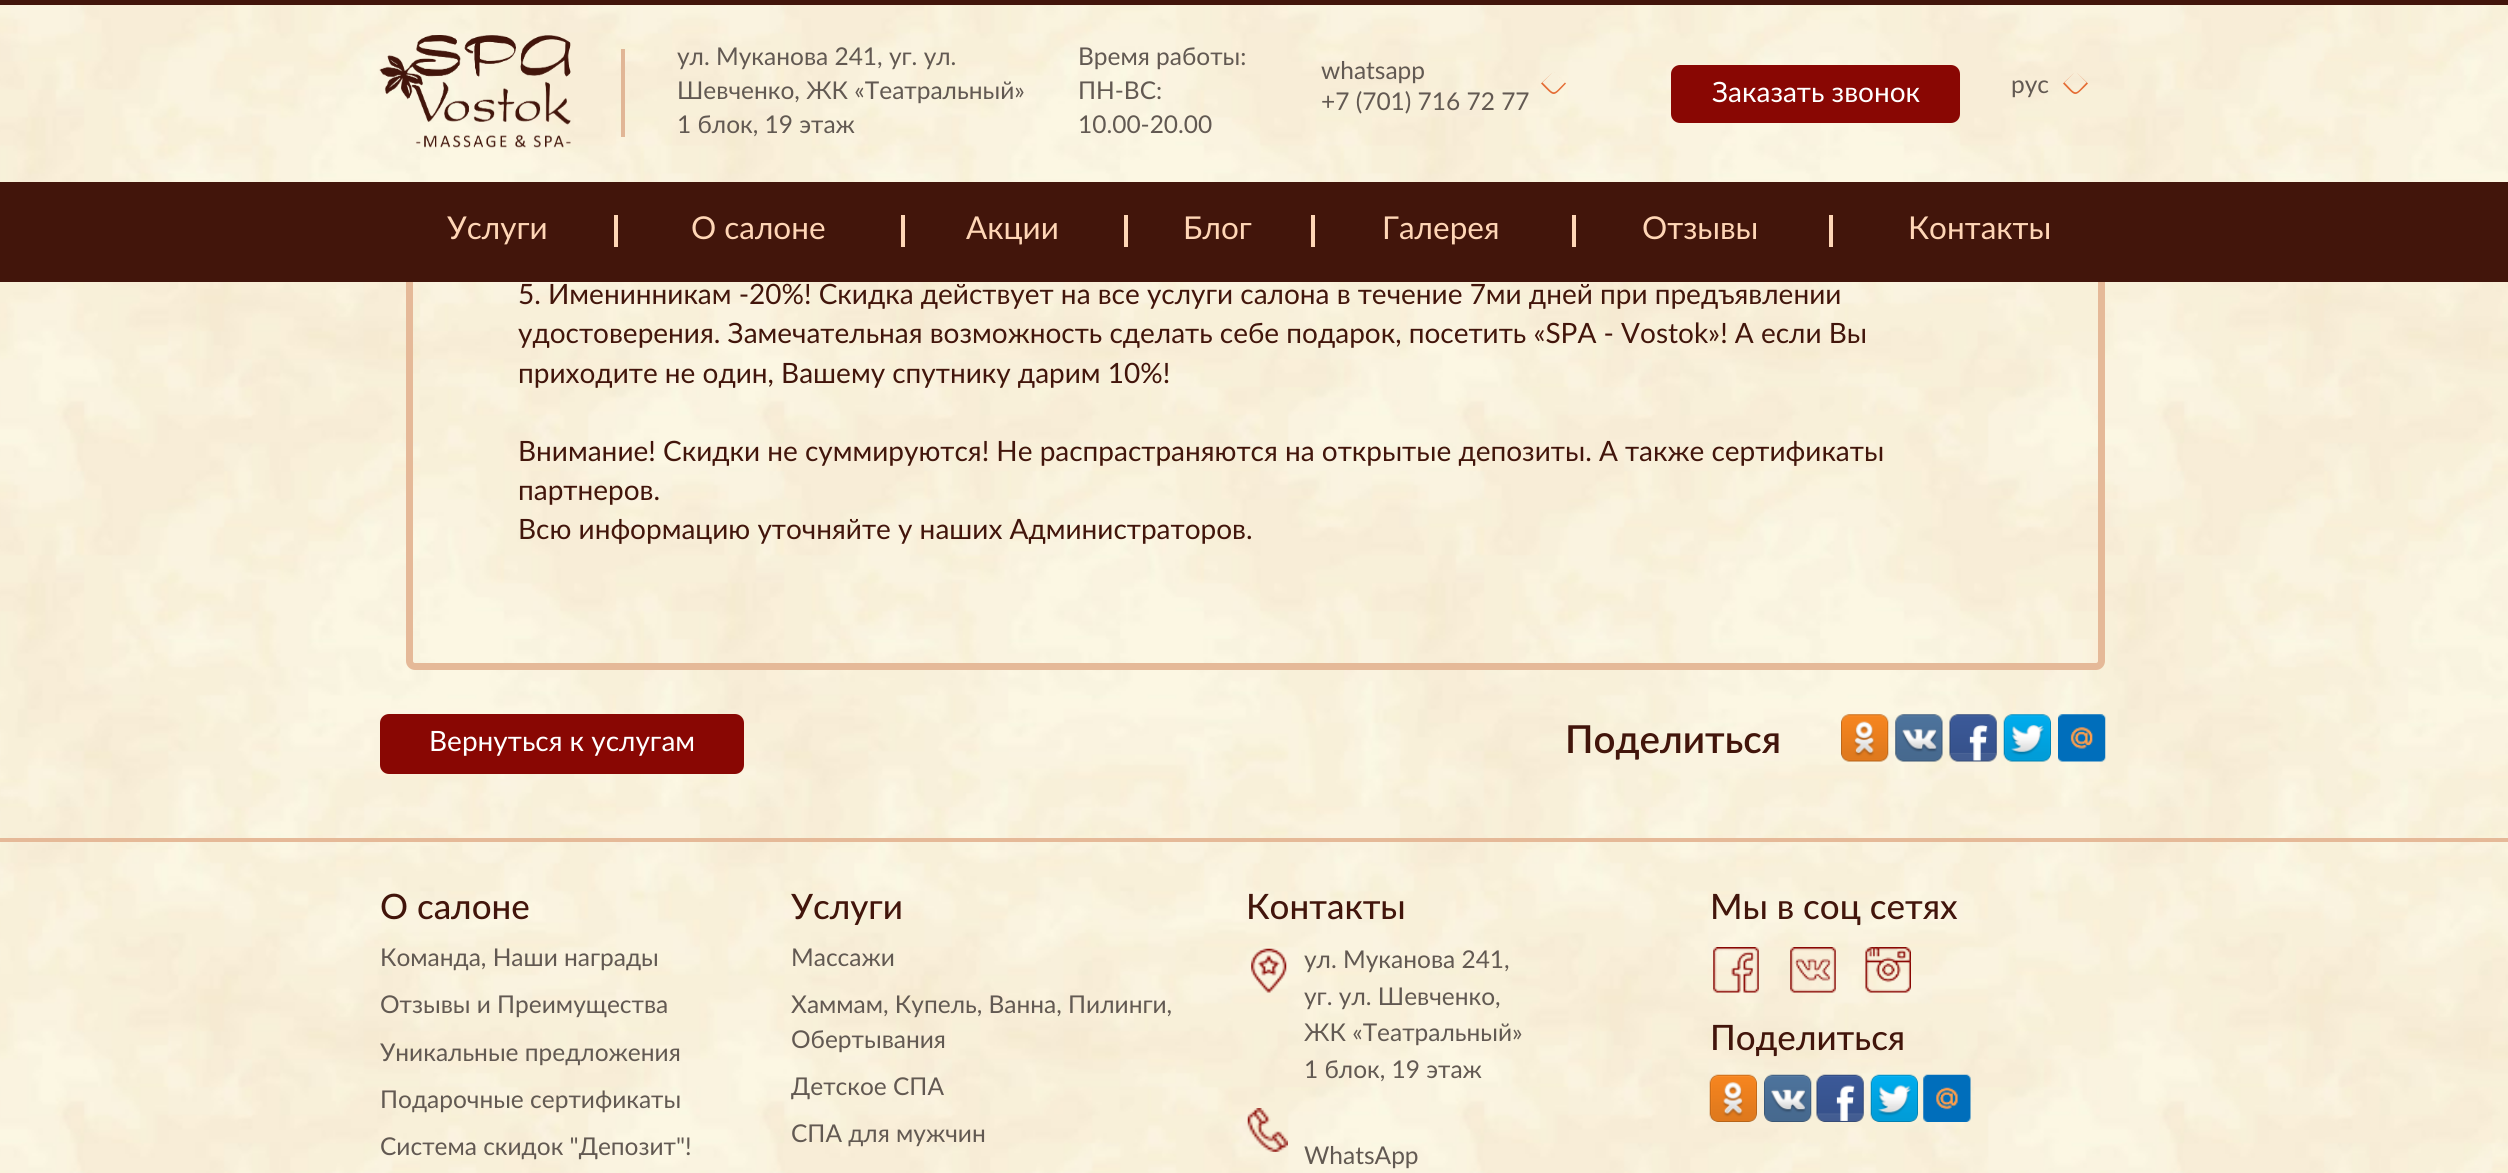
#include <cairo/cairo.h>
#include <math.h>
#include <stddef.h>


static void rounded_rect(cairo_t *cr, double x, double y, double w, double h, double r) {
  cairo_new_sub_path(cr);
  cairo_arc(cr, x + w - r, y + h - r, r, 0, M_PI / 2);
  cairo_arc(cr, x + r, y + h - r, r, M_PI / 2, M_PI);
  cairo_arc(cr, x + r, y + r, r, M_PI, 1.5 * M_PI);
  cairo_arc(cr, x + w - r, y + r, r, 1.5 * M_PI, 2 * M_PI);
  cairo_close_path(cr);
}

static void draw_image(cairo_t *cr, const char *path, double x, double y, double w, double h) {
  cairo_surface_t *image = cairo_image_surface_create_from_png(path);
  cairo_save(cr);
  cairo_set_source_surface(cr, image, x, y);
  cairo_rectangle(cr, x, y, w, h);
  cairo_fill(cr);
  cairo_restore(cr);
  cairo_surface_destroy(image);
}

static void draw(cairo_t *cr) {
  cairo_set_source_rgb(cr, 1, 1, 1);
  cairo_paint(cr);
  draw_image(cr, "images/1.png", 0, 282, 2508, 891);
  rounded_rect(cr, 409.5, -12.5, 1692, 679, 5.5);
  cairo_set_source_rgb(cr, 229 / 255.0, 185 / 255.0, 152 / 255.0);
  cairo_set_line_width(cr, 7);
  cairo_stroke(cr);
  draw_image(cr, "images/2.png", 0, 5, 2508, 177);
  cairo_set_source_rgb(cr, 66 / 255.0, 21 / 255.0, 11 / 255.0);
  cairo_rectangle(cr, 0, 0, 2508, 5);
  cairo_fill(cr);
  draw_image(cr, "images/3.png", 379, 35, 192, 113);
  cairo_set_source_rgb(cr, 225 / 255.0, 182 / 255.0, 150 / 255.0);
  cairo_rectangle(cr, 621, 49, 4, 88);
  cairo_fill(cr);
  cairo_set_source_rgb(cr, 228 / 255.0, 108 / 255.0, 52 / 255.0);
  cairo_set_fill_rule(cr, CAIRO_FILL_RULE_EVEN_ODD);
  cairo_new_path(cr);
  cairo_move_to(cr, 1566, 83.5);
  cairo_curve_to(cr, 1552.5, 97.5, 1555, 97.5, 1541, 83.5);
  cairo_line_to(cr, 1553.5, 71.5);
  cairo_close_path(cr);
  cairo_move_to(cr, 1565, 82.5);
  cairo_curve_to(cr, 1552, 95.5, 1555.5, 95.5, 1542.5, 82.5);
  cairo_line_to(cr, 1553.5, 71.5);
  cairo_close_path(cr);
  cairo_fill(cr);
  cairo_set_source_rgb(cr, 137 / 255.0, 7 / 255.0, 3 / 255.0);
  rounded_rect(cr, 1673, 67, 285, 54, 7);
  cairo_fill_preserve(cr);
  cairo_set_line_width(cr, 4);
  cairo_stroke(cr);
  cairo_set_source_rgb(cr, 228 / 255.0, 108 / 255.0, 52 / 255.0);
  cairo_new_path(cr);
  cairo_move_to(cr, 2088, 83.5);
  cairo_curve_to(cr, 2074, 97.5, 2076.5, 97.5, 2063, 83.5);
  cairo_line_to(cr, 2075.5, 71.5);
  cairo_close_path(cr);
  cairo_move_to(cr, 2086.5, 82.5);
  cairo_curve_to(cr, 2074, 95.5, 2077, 95.5, 2064.5, 82.5);
  cairo_line_to(cr, 2075.5, 71.5);
  cairo_close_path(cr);
  cairo_fill(cr);
  cairo_set_source_rgb(cr, 66 / 255.0, 21 / 255.0, 11 / 255.0);
  cairo_rectangle(cr, 0, 182, 2508, 100);
  cairo_fill(cr);
  cairo_set_source_rgb(cr, 1, 214 / 255.0, 182 / 255.0);
  cairo_rectangle(cr, 614, 215, 4, 32);
  cairo_fill(cr);
  cairo_rectangle(cr, 901, 215, 4, 32);
  cairo_fill(cr);
  cairo_rectangle(cr, 1124, 215, 4, 32);
  cairo_fill(cr);
  cairo_rectangle(cr, 1311, 215, 4, 32);
  cairo_fill(cr);
  cairo_rectangle(cr, 1572, 215, 4, 32);
  cairo_fill(cr);
  cairo_rectangle(cr, 1829, 215, 4, 32);
  cairo_fill(cr);
  cairo_set_source_rgb(cr, 137 / 255.0, 7 / 255.0, 3 / 255.0);
  rounded_rect(cr, 382, 716, 360, 56, 7);
  cairo_fill_preserve(cr);
  cairo_stroke(cr);
  draw_image(cr, "images/4.png", 1841, 714, 48, 48);
  draw_image(cr, "images/5.png", 1895, 714, 48, 48);
  draw_image(cr, "images/6.png", 1949, 714, 48, 48);
  draw_image(cr, "images/7.png", 2003, 714, 48, 48);
  draw_image(cr, "images/8.png", 2058, 714, 48, 48);
  cairo_set_source_rgb(cr, 229 / 255.0, 185 / 255.0, 152 / 255.0);
  cairo_rectangle(cr, 0, 838, 2508, 4);
  cairo_fill(cr);
  draw_image(cr, "images/9.png", 1251, 948, 36, 45);
  draw_image(cr, "images/10.png", 1247, 1108, 41, 44);
  draw_image(cr, "images/11.png", 1713, 947, 46, 46);
  draw_image(cr, "images/12.png", 1790, 947, 46, 46);
  draw_image(cr, "images/13.png", 1865, 947, 46, 46);
  draw_image(cr, "images/14.png", 1709, 1074, 48, 48);
  draw_image(cr, "images/15.png", 1764, 1074, 48, 48);
  draw_image(cr, "images/16.png", 1816, 1074, 48, 48);
  draw_image(cr, "images/17.png", 1870, 1074, 48, 48);
  draw_image(cr, "images/18.png", 1923, 1074, 48, 48);
  cairo_select_font_face(cr, "Lato", CAIRO_FONT_SLANT_NORMAL, CAIRO_FONT_WEIGHT_NORMAL);
  cairo_set_font_size(cr, 24.5);
  cairo_set_source_rgb(cr, 98 / 255.0, 89 / 255.0, 82 / 255.0);
  cairo_move_to(cr, 677, 65);
  cairo_show_text(cr, "ул. Муканова 241, уг. ул.");
  cairo_move_to(cr, 677, 99);
  cairo_show_text(cr, "Шевченко, ЖК «Театральный»");
  cairo_move_to(cr, 677, 133);
  cairo_show_text(cr, "1 блок, 19 этаж");
  cairo_move_to(cr, 1078, 65);
  cairo_show_text(cr, "Время работы:");
  cairo_move_to(cr, 1078, 99);
  cairo_show_text(cr, "ПН-ВС:");
  cairo_move_to(cr, 1078, 133);
  cairo_show_text(cr, "10.00-20.00");
  cairo_move_to(cr, 1321, 79);
  cairo_show_text(cr, "whatsapp");
  cairo_move_to(cr, 1321, 110);
  cairo_show_text(cr, "+7 (701) 716 72 77");
  cairo_set_font_size(cr, 28);
  cairo_set_source_rgb(cr, 1, 1, 1);
  cairo_move_to(cr, 1712, 102);
  cairo_show_text(cr, "Заказать звонок");
  cairo_set_font_size(cr, 24.5);
  cairo_set_source_rgb(cr, 98 / 255.0, 89 / 255.0, 82 / 255.0);
  cairo_move_to(cr, 2011, 93);
  cairo_show_text(cr, "рус");
  cairo_set_font_size(cr, 31.5);
  cairo_set_source_rgb(cr, 1, 214 / 255.0, 182 / 255.0);
  cairo_move_to(cr, 447, 239);
  cairo_show_text(cr, "Услуги");
  cairo_move_to(cr, 691, 239);
  cairo_show_text(cr, "О салоне");
  cairo_move_to(cr, 966, 239);
  cairo_show_text(cr, "Акции");
  cairo_move_to(cr, 1183, 239);
  cairo_show_text(cr, "Блог");
  cairo_move_to(cr, 1382, 239);
  cairo_show_text(cr, "Галерея");
  cairo_move_to(cr, 1642, 239);
  cairo_show_text(cr, "Отзывы");
  cairo_move_to(cr, 1908, 239);
  cairo_show_text(cr, "Контакты");
  cairo_set_font_size(cr, 28);
  cairo_set_source_rgb(cr, 66 / 255.0, 21 / 255.0, 11 / 255.0);
  cairo_move_to(cr, 518, 304);
  cairo_show_text(cr, "5. Именинникам -20%! Скидка действует на все услуги салона в течение 7ми дней при предъявлении");
  cairo_move_to(cr, 518, 343);
  cairo_show_text(cr, "удостоверения. Замечательная возможность сделать себе подарок, посетить «SPA - Vostok»! А если Вы");
  cairo_move_to(cr, 518, 383);
  cairo_show_text(cr, "приходите не один, Вашему спутнику дарим 10%!");
  cairo_move_to(cr, 518, 461);
  cairo_show_text(cr, "Внимание! Скидки не суммируются! Не распрастраняются на открытые депозиты. А также сертификаты");
  cairo_move_to(cr, 518, 500);
  cairo_show_text(cr, "партнеров.");
  cairo_move_to(cr, 518, 539);
  cairo_show_text(cr, "Всю информацию уточняйте у наших Администраторов.");
  cairo_set_source_rgb(cr, 1, 1, 1);
  cairo_move_to(cr, 429, 751);
  cairo_show_text(cr, "Вернуться к услугам");
  cairo_select_font_face(cr, "Lato SemiBold", CAIRO_FONT_SLANT_NORMAL, CAIRO_FONT_WEIGHT_NORMAL);
  cairo_set_font_size(cr, 38.5);
  cairo_set_source_rgb(cr, 66 / 255.0, 21 / 255.0, 11 / 255.0);
  cairo_move_to(cr, 1565, 753);
  cairo_show_text(cr, "Поделиться");
  cairo_select_font_face(cr, "Lato Medium", CAIRO_FONT_SLANT_NORMAL, CAIRO_FONT_WEIGHT_NORMAL);
  cairo_set_font_size(cr, 35);
  cairo_move_to(cr, 380, 919);
  cairo_show_text(cr, "О салоне");
  cairo_select_font_face(cr, "Lato", CAIRO_FONT_SLANT_NORMAL, CAIRO_FONT_WEIGHT_NORMAL);
  cairo_set_font_size(cr, 24.5);
  cairo_set_source_rgb(cr, 98 / 255.0, 89 / 255.0, 82 / 255.0);
  cairo_move_to(cr, 380, 966);
  cairo_show_text(cr, "Команда, Наши награды");
  cairo_move_to(cr, 380, 1013);
  cairo_show_text(cr, "Отзывы и Преимущества");
  cairo_move_to(cr, 380, 1061);
  cairo_show_text(cr, "Уникальные предложения");
  cairo_move_to(cr, 380, 1108);
  cairo_show_text(cr, "Подарочные сертификаты");
  cairo_move_to(cr, 380, 1155);
  cairo_show_text(cr, "Система скидок \"Депозит\"!");
  cairo_select_font_face(cr, "Lato Medium", CAIRO_FONT_SLANT_NORMAL, CAIRO_FONT_WEIGHT_NORMAL);
  cairo_set_font_size(cr, 35);
  cairo_set_source_rgb(cr, 66 / 255.0, 21 / 255.0, 11 / 255.0);
  cairo_move_to(cr, 791, 919);
  cairo_show_text(cr, "Услуги");
  cairo_select_font_face(cr, "Lato", CAIRO_FONT_SLANT_NORMAL, CAIRO_FONT_WEIGHT_NORMAL);
  cairo_set_font_size(cr, 24.5);
  cairo_set_source_rgb(cr, 98 / 255.0, 89 / 255.0, 82 / 255.0);
  cairo_move_to(cr, 791, 966);
  cairo_show_text(cr, "Массажи");
  cairo_move_to(cr, 791, 1013);
  cairo_show_text(cr, "Хаммам, Купель, Ванна, Пилинги,");
  cairo_move_to(cr, 791, 1048);
  cairo_show_text(cr, "Обертывания");
  cairo_move_to(cr, 791, 1095);
  cairo_show_text(cr, "Детское СПА");
  cairo_move_to(cr, 791, 1142);
  cairo_show_text(cr, "СПА для мужчин");
  cairo_select_font_face(cr, "Lato Medium", CAIRO_FONT_SLANT_NORMAL, CAIRO_FONT_WEIGHT_NORMAL);
  cairo_set_font_size(cr, 35);
  cairo_set_source_rgb(cr, 66 / 255.0, 21 / 255.0, 11 / 255.0);
  cairo_move_to(cr, 1246, 919);
  cairo_show_text(cr, "Контакты");
  cairo_select_font_face(cr, "Lato", CAIRO_FONT_SLANT_NORMAL, CAIRO_FONT_WEIGHT_NORMAL);
  cairo_set_font_size(cr, 24.5);
  cairo_set_source_rgb(cr, 98 / 255.0, 89 / 255.0, 82 / 255.0);
  cairo_move_to(cr, 1304, 968);
  cairo_show_text(cr, "ул. Муканова 241,");
  cairo_move_to(cr, 1304, 1005);
  cairo_show_text(cr, "уг. ул. Шевченко,");
  cairo_move_to(cr, 1304, 1041);
  cairo_show_text(cr, "ЖК «Театральный»");
  cairo_move_to(cr, 1304, 1078);
  cairo_show_text(cr, "1 блок, 19 этаж");
  cairo_move_to(cr, 1304, 1164);
  cairo_show_text(cr, "WhatsApp");
  cairo_select_font_face(cr, "Lato Medium", CAIRO_FONT_SLANT_NORMAL, CAIRO_FONT_WEIGHT_NORMAL);
  cairo_set_font_size(cr, 35);
  cairo_set_source_rgb(cr, 66 / 255.0, 21 / 255.0, 11 / 255.0);
  cairo_move_to(cr, 1710, 919);
  cairo_show_text(cr, "Мы в соц сетях");
  cairo_move_to(cr, 1710, 1050);
  cairo_show_text(cr, "Поделиться");
}

int main(void) {
  cairo_surface_t *surface = cairo_image_surface_create(CAIRO_FORMAT_RGB24, 2508, 1173);
  cairo_t *cr = cairo_create(surface);
  cairo_font_options_t *options = cairo_font_options_create();
  cairo_font_options_set_hint_metrics(options, CAIRO_HINT_METRICS_OFF);
  cairo_font_options_set_hint_style(options, CAIRO_HINT_STYLE_NONE);
  cairo_set_font_options(cr, options);
  cairo_set_miter_limit(cr, 4);
  draw(cr);
  cairo_surface_write_to_png(surface, "out.png");
  cairo_font_options_destroy(options);
  cairo_destroy(cr);
  cairo_surface_destroy(surface);
  return 0;
}
